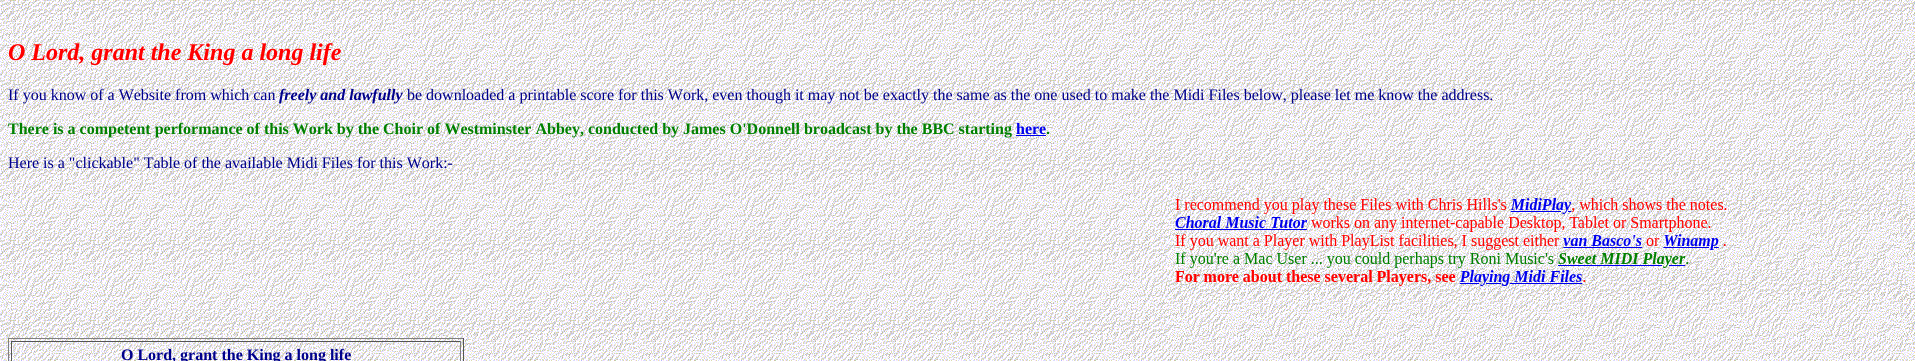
#include <cairo/cairo.h>
#include <math.h>
#include <stddef.h>


static void draw_image(cairo_t *cr, const char *path, double x, double y, double w, double h) {
  cairo_surface_t *image = cairo_image_surface_create_from_png(path);
  cairo_save(cr);
  cairo_set_source_surface(cr, image, x, y);
  cairo_rectangle(cr, x, y, w, h);
  cairo_fill(cr);
  cairo_restore(cr);
  cairo_surface_destroy(image);
}

static void draw(cairo_t *cr) {
  cairo_set_source_rgb(cr, 1, 1, 1);
  cairo_paint(cr);
  draw_image(cr, "images/1.png", 0, 0, 1915, 361);
  cairo_set_source_rgb(cr, 0, 0, 238 / 255.0);
  cairo_rectangle(cr, 1016, 135, 30, 1);
  cairo_fill(cr);
  draw_image(cr, "images/2.png", 1167, 188, 740, 150);
  cairo_set_source_rgb(cr, 128 / 255.0, 128 / 255.0, 128 / 255.0);
  cairo_rectangle(cr, 8, 338, 456, 1);
  cairo_fill(cr);
  cairo_set_source_rgb(cr, 85 / 255.0, 85 / 255.0, 85 / 255.0);
  cairo_rectangle(cr, 463, 338, 1, 23);
  cairo_fill(cr);
  cairo_set_source_rgb(cr, 128 / 255.0, 128 / 255.0, 128 / 255.0);
  cairo_rectangle(cr, 8, 338, 1, 23);
  cairo_fill(cr);
  cairo_set_source_rgb(cr, 85 / 255.0, 85 / 255.0, 85 / 255.0);
  cairo_rectangle(cr, 11, 341, 450, 1);
  cairo_fill(cr);
  cairo_set_source_rgb(cr, 128 / 255.0, 128 / 255.0, 128 / 255.0);
  cairo_rectangle(cr, 460, 341, 1, 20);
  cairo_fill(cr);
  cairo_set_source_rgb(cr, 85 / 255.0, 85 / 255.0, 85 / 255.0);
  cairo_rectangle(cr, 11, 341, 1, 20);
  cairo_fill(cr);
  cairo_select_font_face(cr, "Liberation Serif", CAIRO_FONT_SLANT_ITALIC, CAIRO_FONT_WEIGHT_BOLD);
  cairo_set_font_size(cr, 24);
  cairo_set_source_rgb(cr, 1, 0, 0);
  cairo_move_to(cr, 8, 60);
  cairo_show_text(cr, "O Lord, grant the King a long life");
  cairo_select_font_face(cr, "Liberation Serif", CAIRO_FONT_SLANT_NORMAL, CAIRO_FONT_WEIGHT_NORMAL);
  cairo_set_font_size(cr, 16);
  cairo_set_source_rgb(cr, 0, 0, 139 / 255.0);
  cairo_move_to(cr, 8, 100);
  cairo_show_text(cr, "If you know of a Website from which can");
  cairo_select_font_face(cr, "Liberation Serif", CAIRO_FONT_SLANT_ITALIC, CAIRO_FONT_WEIGHT_BOLD);
  cairo_move_to(cr, 279, 100);
  cairo_show_text(cr, "freely and lawfully");
  cairo_select_font_face(cr, "Liberation Serif", CAIRO_FONT_SLANT_NORMAL, CAIRO_FONT_WEIGHT_NORMAL);
  cairo_move_to(cr, 407, 100);
  cairo_show_text(cr, "be downloaded a printable score for this Work, even though it may not be exactly the same as the one used to make the Midi Files below, please let me know the address.");
  cairo_select_font_face(cr, "Liberation Serif", CAIRO_FONT_SLANT_NORMAL, CAIRO_FONT_WEIGHT_BOLD);
  cairo_set_source_rgb(cr, 0, 128 / 255.0, 0);
  cairo_move_to(cr, 8, 134);
  cairo_show_text(cr, "There is a competent performance of this Work by the Choir of Westminster Abbey, conducted by James O'Donnell broadcast by the BBC starting");
  cairo_set_source_rgb(cr, 0, 0, 238 / 255.0);
  cairo_move_to(cr, 1016, 134);
  cairo_show_text(cr, "here");
  cairo_set_source_rgb(cr, 0, 128 / 255.0, 0);
  cairo_move_to(cr, 1046, 134);
  cairo_show_text(cr, ".");
  cairo_select_font_face(cr, "Liberation Serif", CAIRO_FONT_SLANT_NORMAL, CAIRO_FONT_WEIGHT_NORMAL);
  cairo_set_source_rgb(cr, 0, 0, 139 / 255.0);
  cairo_move_to(cr, 8, 168);
  cairo_show_text(cr, "Here is a \"clickable\" Table of the available Midi Files for this Work:-");
  cairo_select_font_face(cr, "Liberation Serif", CAIRO_FONT_SLANT_NORMAL, CAIRO_FONT_WEIGHT_BOLD);
  cairo_move_to(cr, 121, 360);
  cairo_show_text(cr, "O Lord, grant the King a long life");
}

int main(void) {
  cairo_surface_t *surface = cairo_image_surface_create(CAIRO_FORMAT_RGB24, 1915, 361);
  cairo_t *cr = cairo_create(surface);
  cairo_font_options_t *options = cairo_font_options_create();
  cairo_font_options_set_hint_metrics(options, CAIRO_HINT_METRICS_OFF);
  cairo_font_options_set_hint_style(options, CAIRO_HINT_STYLE_NONE);
  cairo_set_font_options(cr, options);
  cairo_set_miter_limit(cr, 4);
  draw(cr);
  cairo_surface_write_to_png(surface, "out.png");
  cairo_font_options_destroy(options);
  cairo_destroy(cr);
  cairo_surface_destroy(surface);
  return 0;
}
